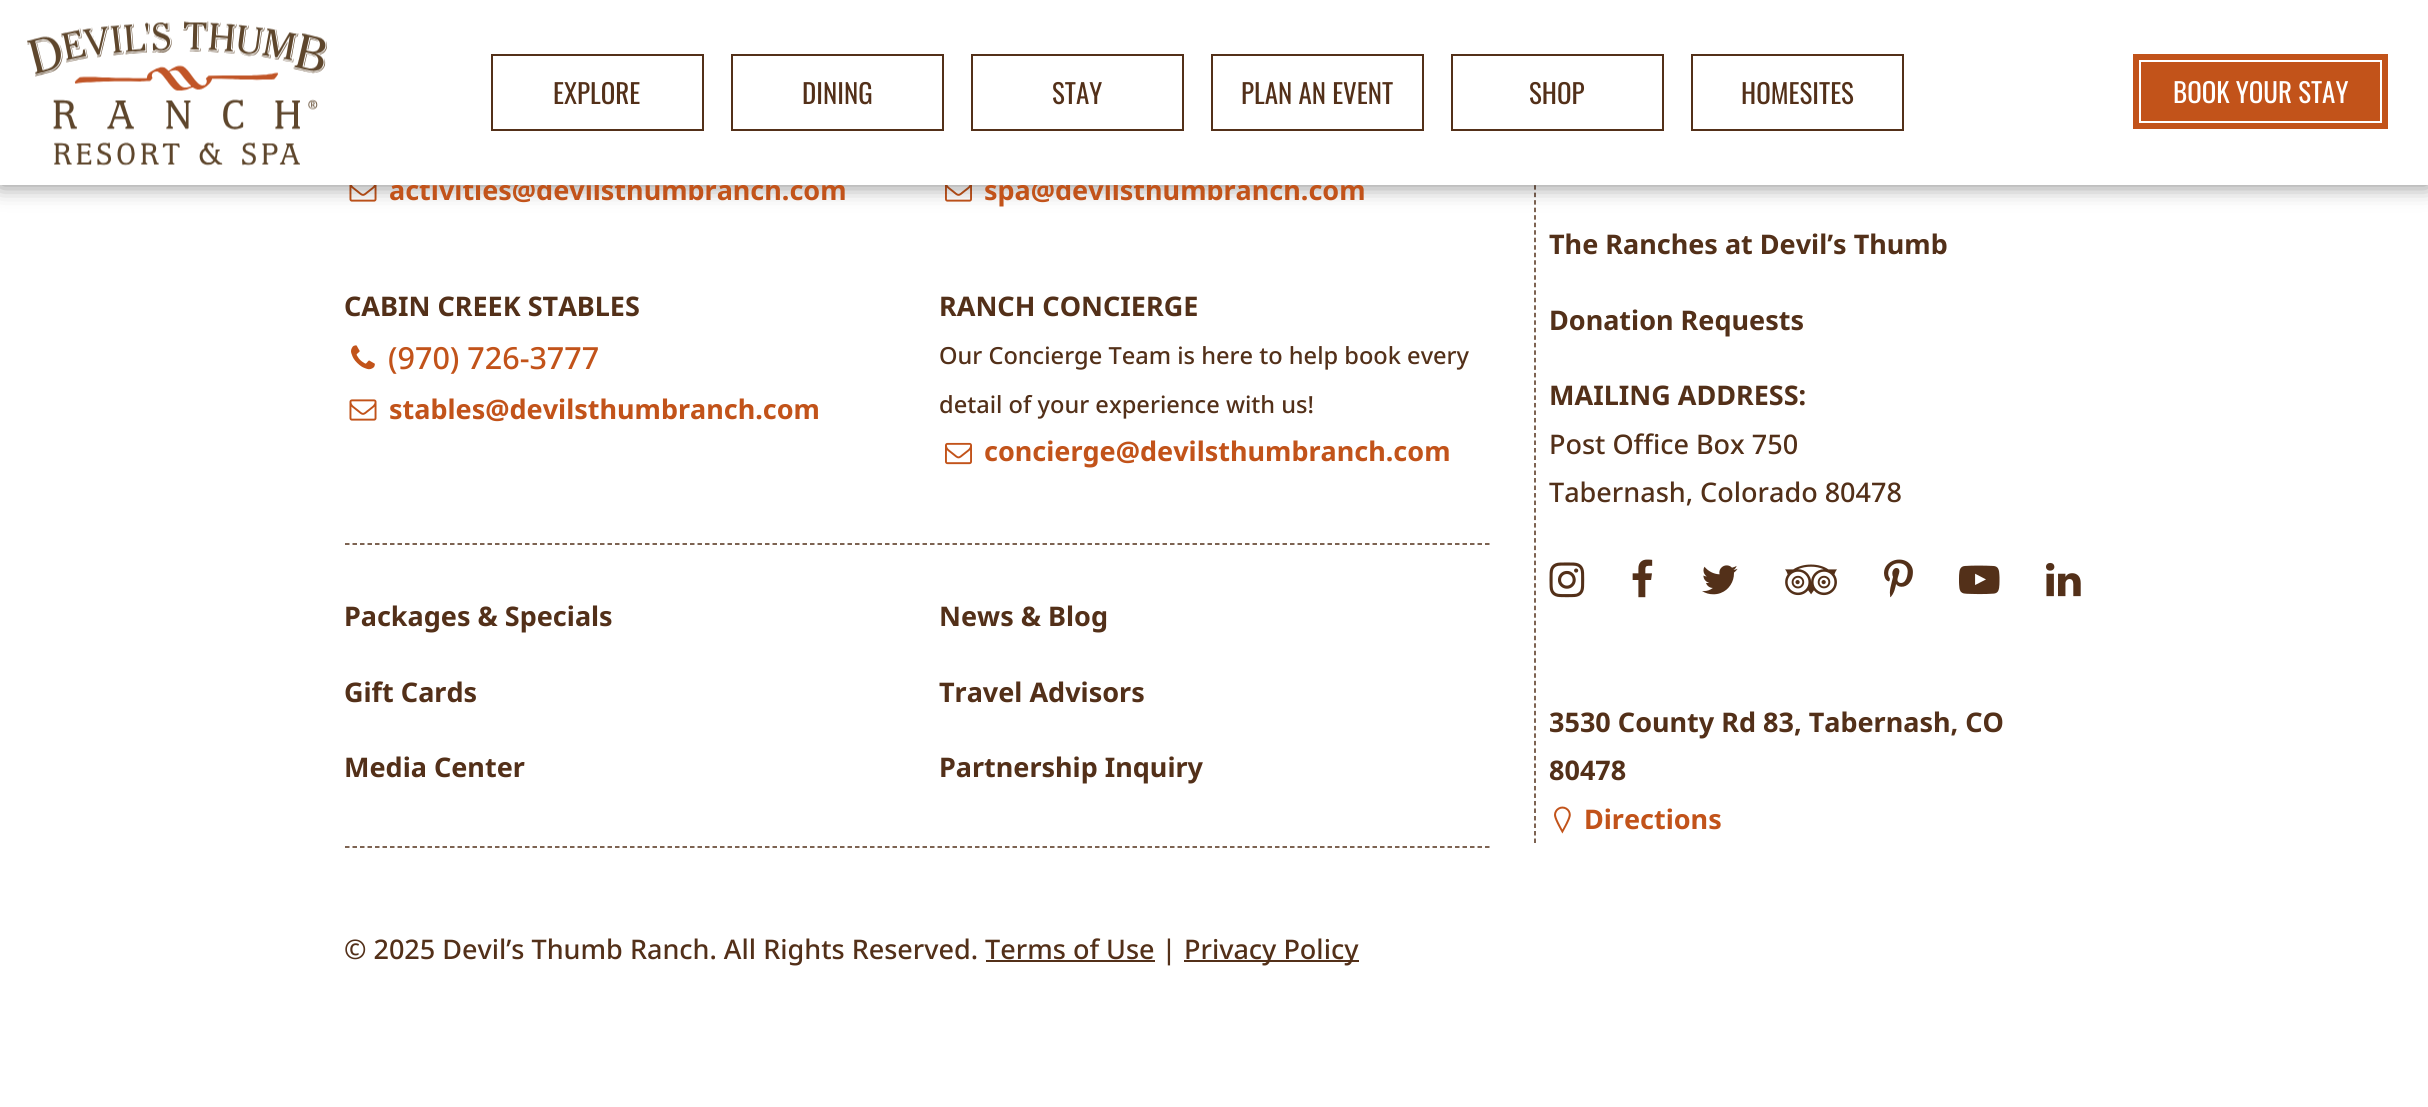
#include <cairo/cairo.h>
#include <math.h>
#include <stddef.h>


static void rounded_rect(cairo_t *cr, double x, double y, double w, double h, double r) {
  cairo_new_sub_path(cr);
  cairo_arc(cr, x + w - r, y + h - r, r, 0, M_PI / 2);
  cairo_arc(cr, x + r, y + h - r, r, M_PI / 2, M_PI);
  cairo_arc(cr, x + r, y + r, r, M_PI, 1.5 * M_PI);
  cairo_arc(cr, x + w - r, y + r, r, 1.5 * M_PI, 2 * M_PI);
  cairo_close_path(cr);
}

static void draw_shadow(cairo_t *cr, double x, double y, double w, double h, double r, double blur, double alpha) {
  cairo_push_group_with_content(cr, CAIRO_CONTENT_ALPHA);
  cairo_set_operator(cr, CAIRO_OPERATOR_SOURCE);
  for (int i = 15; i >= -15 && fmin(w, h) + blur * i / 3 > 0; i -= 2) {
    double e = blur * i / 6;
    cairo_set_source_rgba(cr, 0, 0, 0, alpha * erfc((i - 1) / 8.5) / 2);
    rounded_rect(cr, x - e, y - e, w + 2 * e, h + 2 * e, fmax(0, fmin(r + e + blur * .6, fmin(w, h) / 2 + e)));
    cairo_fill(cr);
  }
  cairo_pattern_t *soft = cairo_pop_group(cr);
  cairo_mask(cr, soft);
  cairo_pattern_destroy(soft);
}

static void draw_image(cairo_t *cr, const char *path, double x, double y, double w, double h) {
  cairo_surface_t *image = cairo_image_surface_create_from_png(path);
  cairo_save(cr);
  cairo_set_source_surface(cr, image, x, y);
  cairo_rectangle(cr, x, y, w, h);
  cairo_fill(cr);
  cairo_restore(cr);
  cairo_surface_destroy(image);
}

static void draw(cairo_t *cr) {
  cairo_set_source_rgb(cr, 1, 1, 1);
  cairo_paint(cr);
  draw_image(cr, "images/2.png", 349, 185, 28, 17);
  draw_image(cr, "images/3.png", 945, 185, 27, 17);
  cairo_new_path(cr);
  cairo_move_to(cr, 1535, -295.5);
  cairo_line_to(cr, 1535, 843);
  cairo_set_source_rgb(cr, 83 / 255.0, 48 / 255.0, 25 / 255.0);
  cairo_set_line_width(cr, 1.5);
  cairo_set_dash(cr, (double[]){4.5, 3.01}, 2, 0);
  cairo_stroke(cr);
  cairo_set_source_rgb(cr, 0, 0, 0);
  draw_shadow(cr, 0, 0, 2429, 185, 0, 11, 0.5);
  cairo_new_path(cr);
  cairo_move_to(cr, 345, 544);
  cairo_line_to(cr, 1489.5, 544);
  cairo_set_source_rgb(cr, 83 / 255.0, 48 / 255.0, 25 / 255.0);
  cairo_set_dash(cr, (double[]){4.5, 3}, 2, 0);
  cairo_stroke(cr);
  draw_image(cr, "images/4.png", 351, 345, 24, 25);
  draw_image(cr, "images/5.png", 349, 399, 28, 22);
  draw_image(cr, "images/6.png", 945, 442, 27, 23);
  cairo_new_path(cr);
  cairo_move_to(cr, 345, 847);
  cairo_line_to(cr, 1489.5, 847);
  cairo_stroke(cr);
  draw_image(cr, "images/7.png", 1549, 562, 36, 36);
  draw_image(cr, "images/8.png", 1632, 559, 21, 39);
  draw_image(cr, "images/9.png", 1702, 565, 36, 30);
  draw_image(cr, "images/10.png", 1785, 564, 52, 32);
  draw_image(cr, "images/11.png", 1884, 559, 29, 39);
  draw_image(cr, "images/12.png", 1959, 565, 41, 30);
  draw_image(cr, "images/13.png", 2046, 562, 35, 35);
  draw_image(cr, "images/14.png", 1554, 806, 17, 28);
  cairo_rectangle(cr, 1184, 960, 175, 2);
  cairo_fill(cr);
  cairo_rectangle(cr, 986, 960, 169, 2);
  cairo_fill(cr);
  cairo_select_font_face(cr, "Noto Sans", CAIRO_FONT_SLANT_NORMAL, CAIRO_FONT_WEIGHT_BOLD);
  cairo_set_font_size(cr, 27);
  cairo_set_source_rgb(cr, 194 / 255.0, 83 / 255.0, 26 / 255.0);
  cairo_move_to(cr, 389, 200);
  cairo_show_text(cr, "activities@devilsthumbranch.com");
  cairo_move_to(cr, 984, 200);
  cairo_show_text(cr, "spa@devilsthumbranch.com");
  cairo_set_source_rgb(cr, 1, 1, 1);
  cairo_rectangle(cr, 0, 0, 2428, 185);
  cairo_fill(cr);
  cairo_rectangle(cr, 1212, 55, 211, 75);
  cairo_set_source_rgb(cr, 83 / 255.0, 48 / 255.0, 25 / 255.0);
  cairo_set_line_width(cr, 2);
  cairo_set_dash(cr, NULL, 0, 0);
  cairo_stroke(cr);
  cairo_select_font_face(cr, "Oswald", CAIRO_FONT_SLANT_NORMAL, CAIRO_FONT_WEIGHT_NORMAL);
  cairo_move_to(cr, 1241, 104);
  cairo_show_text(cr, "PLAN AN EVENT");
  cairo_rectangle(cr, 972, 55, 211, 75);
  cairo_stroke(cr);
  cairo_move_to(cr, 1052, 104);
  cairo_show_text(cr, "STAY");
  cairo_rectangle(cr, 732, 55, 211, 75);
  cairo_stroke(cr);
  cairo_move_to(cr, 802, 104);
  cairo_show_text(cr, "DINING");
  cairo_rectangle(cr, 492, 55, 211, 75);
  cairo_stroke(cr);
  cairo_move_to(cr, 553, 104);
  cairo_show_text(cr, "EXPLORE");
  cairo_set_source_rgb(cr, 194 / 255.0, 83 / 255.0, 26 / 255.0);
  cairo_rectangle(cr, 2133, 54, 255, 75);
  cairo_fill(cr);
  cairo_rectangle(cr, 2140, 61, 241, 61);
  cairo_set_source_rgb(cr, 1, 1, 1);
  cairo_stroke(cr);
  cairo_move_to(cr, 2173, 103);
  cairo_show_text(cr, "BOOK YOUR STAY");
  cairo_rectangle(cr, 1692, 55, 211, 75);
  cairo_set_source_rgb(cr, 83 / 255.0, 48 / 255.0, 25 / 255.0);
  cairo_stroke(cr);
  cairo_move_to(cr, 1741, 104);
  cairo_show_text(cr, "HOMESITES");
  cairo_rectangle(cr, 1452, 55, 211, 75);
  cairo_stroke(cr);
  cairo_move_to(cr, 1529, 104);
  cairo_show_text(cr, "SHOP");
  draw_image(cr, "images/1.png", 27, 21, 300, 145);
  cairo_select_font_face(cr, "Noto Sans", CAIRO_FONT_SLANT_NORMAL, CAIRO_FONT_WEIGHT_BOLD);
  cairo_move_to(cr, 344, 316);
  cairo_show_text(cr, "CABIN CREEK STABLES");
  cairo_select_font_face(cr, "Noto Sans Medium", CAIRO_FONT_SLANT_NORMAL, CAIRO_FONT_WEIGHT_NORMAL);
  cairo_set_font_size(cr, 30.5);
  cairo_set_source_rgb(cr, 194 / 255.0, 83 / 255.0, 26 / 255.0);
  cairo_move_to(cr, 388, 369);
  cairo_show_text(cr, "(970) 726-3777");
  cairo_select_font_face(cr, "Noto Sans", CAIRO_FONT_SLANT_NORMAL, CAIRO_FONT_WEIGHT_BOLD);
  cairo_set_font_size(cr, 27);
  cairo_move_to(cr, 389, 419);
  cairo_show_text(cr, "stables@devilsthumbranch.com");
  cairo_set_source_rgb(cr, 83 / 255.0, 48 / 255.0, 25 / 255.0);
  cairo_move_to(cr, 939, 316);
  cairo_show_text(cr, "RANCH CONCIERGE");
  cairo_select_font_face(cr, "Noto Sans Medium", CAIRO_FONT_SLANT_NORMAL, CAIRO_FONT_WEIGHT_NORMAL);
  cairo_set_font_size(cr, 23.6);
  cairo_move_to(cr, 939, 364);
  cairo_show_text(cr, "Our Concierge Team is here to help book every");
  cairo_move_to(cr, 939, 413);
  cairo_show_text(cr, "detail of your experience with us!");
  cairo_select_font_face(cr, "Noto Sans", CAIRO_FONT_SLANT_NORMAL, CAIRO_FONT_WEIGHT_BOLD);
  cairo_set_font_size(cr, 27);
  cairo_set_source_rgb(cr, 194 / 255.0, 83 / 255.0, 26 / 255.0);
  cairo_move_to(cr, 984, 461);
  cairo_show_text(cr, "concierge@devilsthumbranch.com");
  cairo_set_source_rgb(cr, 83 / 255.0, 48 / 255.0, 25 / 255.0);
  cairo_move_to(cr, 344, 626);
  cairo_show_text(cr, "Packages & Specials");
  cairo_move_to(cr, 939, 626);
  cairo_show_text(cr, "News & Blog");
  cairo_move_to(cr, 344, 702);
  cairo_show_text(cr, "Gift Cards");
  cairo_move_to(cr, 939, 702);
  cairo_show_text(cr, "Travel Advisors");
  cairo_move_to(cr, 344, 777);
  cairo_show_text(cr, "Media Center");
  cairo_move_to(cr, 939, 777);
  cairo_show_text(cr, "Partnership Inquiry");
  cairo_move_to(cr, 1549, 254);
  cairo_show_text(cr, "The Ranches at Devil’s Thumb");
  cairo_move_to(cr, 1549, 330);
  cairo_show_text(cr, "Donation Requests");
  cairo_move_to(cr, 1549, 405);
  cairo_show_text(cr, "MAILING ADDRESS:");
  cairo_select_font_face(cr, "Noto Sans Medium", CAIRO_FONT_SLANT_NORMAL, CAIRO_FONT_WEIGHT_NORMAL);
  cairo_move_to(cr, 1549, 454);
  cairo_show_text(cr, "Post Office Box 750");
  cairo_move_to(cr, 1549, 502);
  cairo_show_text(cr, "Tabernash, Colorado 80478");
  cairo_select_font_face(cr, "Noto Sans", CAIRO_FONT_SLANT_NORMAL, CAIRO_FONT_WEIGHT_BOLD);
  cairo_move_to(cr, 1549, 732);
  cairo_show_text(cr, "3530 County Rd 83, Tabernash, CO");
  cairo_move_to(cr, 1549, 780);
  cairo_show_text(cr, "80478");
  cairo_set_source_rgb(cr, 194 / 255.0, 83 / 255.0, 26 / 255.0);
  cairo_move_to(cr, 1584, 829);
  cairo_show_text(cr, "Directions");
  cairo_select_font_face(cr, "Noto Sans Medium", CAIRO_FONT_SLANT_NORMAL, CAIRO_FONT_WEIGHT_NORMAL);
  cairo_set_source_rgb(cr, 83 / 255.0, 48 / 255.0, 25 / 255.0);
  cairo_move_to(cr, 344, 959);
  cairo_show_text(cr, "© 2025 Devil’s Thumb Ranch. All Rights Reserved. Terms of Use |");
  cairo_move_to(cr, 1184, 959);
  cairo_show_text(cr, "Privacy Policy");
}

int main(void) {
  cairo_surface_t *surface = cairo_image_surface_create(CAIRO_FORMAT_RGB24, 2428, 1107);
  cairo_t *cr = cairo_create(surface);
  cairo_font_options_t *options = cairo_font_options_create();
  cairo_font_options_set_hint_metrics(options, CAIRO_HINT_METRICS_OFF);
  cairo_font_options_set_hint_style(options, CAIRO_HINT_STYLE_NONE);
  cairo_set_font_options(cr, options);
  cairo_set_miter_limit(cr, 4);
  draw(cr);
  cairo_surface_write_to_png(surface, "out.png");
  cairo_font_options_destroy(options);
  cairo_destroy(cr);
  cairo_surface_destroy(surface);
  return 0;
}
